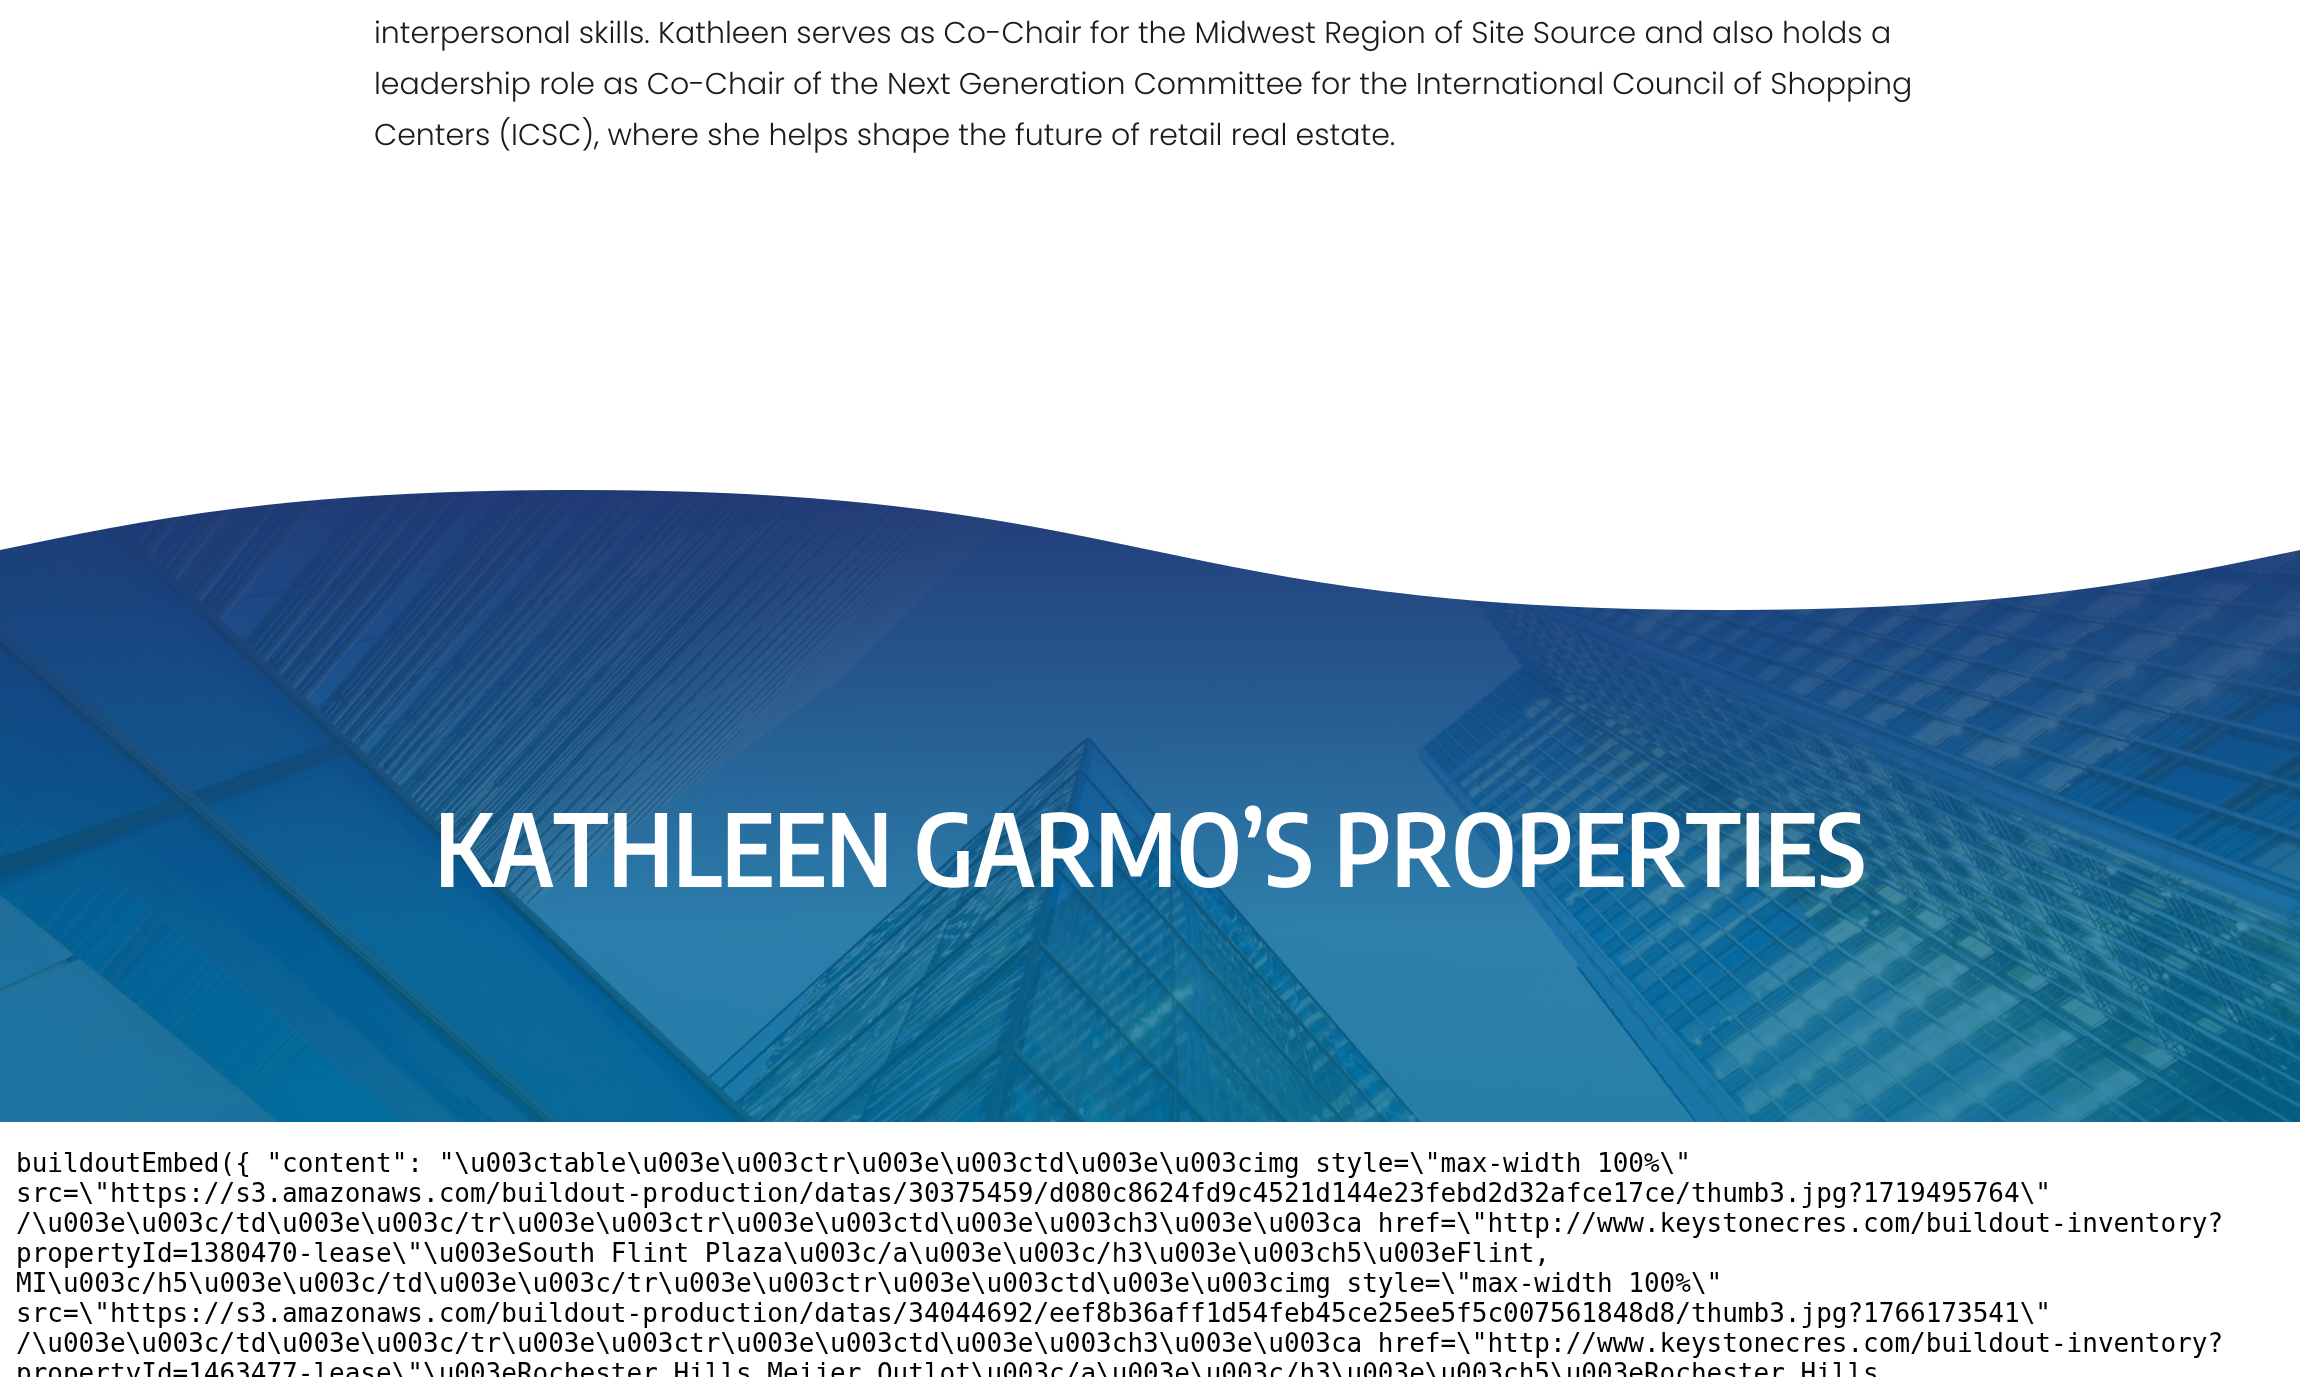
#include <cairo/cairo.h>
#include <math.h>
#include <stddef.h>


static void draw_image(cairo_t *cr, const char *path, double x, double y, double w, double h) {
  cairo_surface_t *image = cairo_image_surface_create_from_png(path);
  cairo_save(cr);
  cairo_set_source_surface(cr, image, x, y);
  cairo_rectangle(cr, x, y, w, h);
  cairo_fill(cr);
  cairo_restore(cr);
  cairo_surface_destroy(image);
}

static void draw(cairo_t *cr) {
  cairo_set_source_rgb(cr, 1, 1, 1);
  cairo_paint(cr);
  draw_image(cr, "images/1.png", 0, 490, 2300, 632);
  cairo_set_source_rgb(cr, 1, 1, 1);
  cairo_new_path(cr);
  cairo_move_to(cr, 575, 490);
  cairo_curve_to(cr, 288, 490, 144, 520, 0, 550);
  cairo_line_to(cr, 0, 450);
  cairo_line_to(cr, 2300, 450);
  cairo_line_to(cr, 2300, 550);
  cairo_curve_to(cr, 2156, 580, 2012, 610, 1725, 610);
  cairo_curve_to(cr, 1150, 610, 1150, 490, 575, 490);
  cairo_close_path(cr);
  cairo_fill(cr);
  draw_image(cr, "images/2.png", 17, 1152, 2204, 225);
  cairo_select_font_face(cr, "Poppins Light", CAIRO_FONT_SLANT_NORMAL, CAIRO_FONT_WEIGHT_NORMAL);
  cairo_set_font_size(cr, 30);
  cairo_set_source_rgb(cr, 28 / 255.0, 27 / 255.0, 25 / 255.0);
  cairo_move_to(cr, 374, 43);
  cairo_show_text(cr, "interpersonal skills. Kathleen serves as Co-Chair for the Midwest Region of Site Source and also holds a");
  cairo_move_to(cr, 374, 94);
  cairo_show_text(cr, "leadership role as Co-Chair of the Next Generation Committee for the International Council of Shopping");
  cairo_move_to(cr, 374, 145);
  cairo_show_text(cr, "Centers (ICSC), where she helps shape the future of retail real estate.");
  cairo_select_font_face(cr, "Encode Sans Condensed SemiBold", CAIRO_FONT_SLANT_NORMAL, CAIRO_FONT_WEIGHT_NORMAL);
  cairo_set_font_size(cr, 100);
  cairo_set_source_rgb(cr, 1, 1, 1);
  cairo_move_to(cr, 435, 887);
  cairo_show_text(cr, "KATHLEEN GARMO’S PROPERTIES");
}

int main(void) {
  cairo_surface_t *surface = cairo_image_surface_create(CAIRO_FORMAT_RGB24, 2300, 1377);
  cairo_t *cr = cairo_create(surface);
  cairo_font_options_t *options = cairo_font_options_create();
  cairo_font_options_set_hint_metrics(options, CAIRO_HINT_METRICS_OFF);
  cairo_font_options_set_hint_style(options, CAIRO_HINT_STYLE_NONE);
  cairo_set_font_options(cr, options);
  cairo_set_miter_limit(cr, 4);
  draw(cr);
  cairo_surface_write_to_png(surface, "out.png");
  cairo_font_options_destroy(options);
  cairo_destroy(cr);
  cairo_surface_destroy(surface);
  return 0;
}
